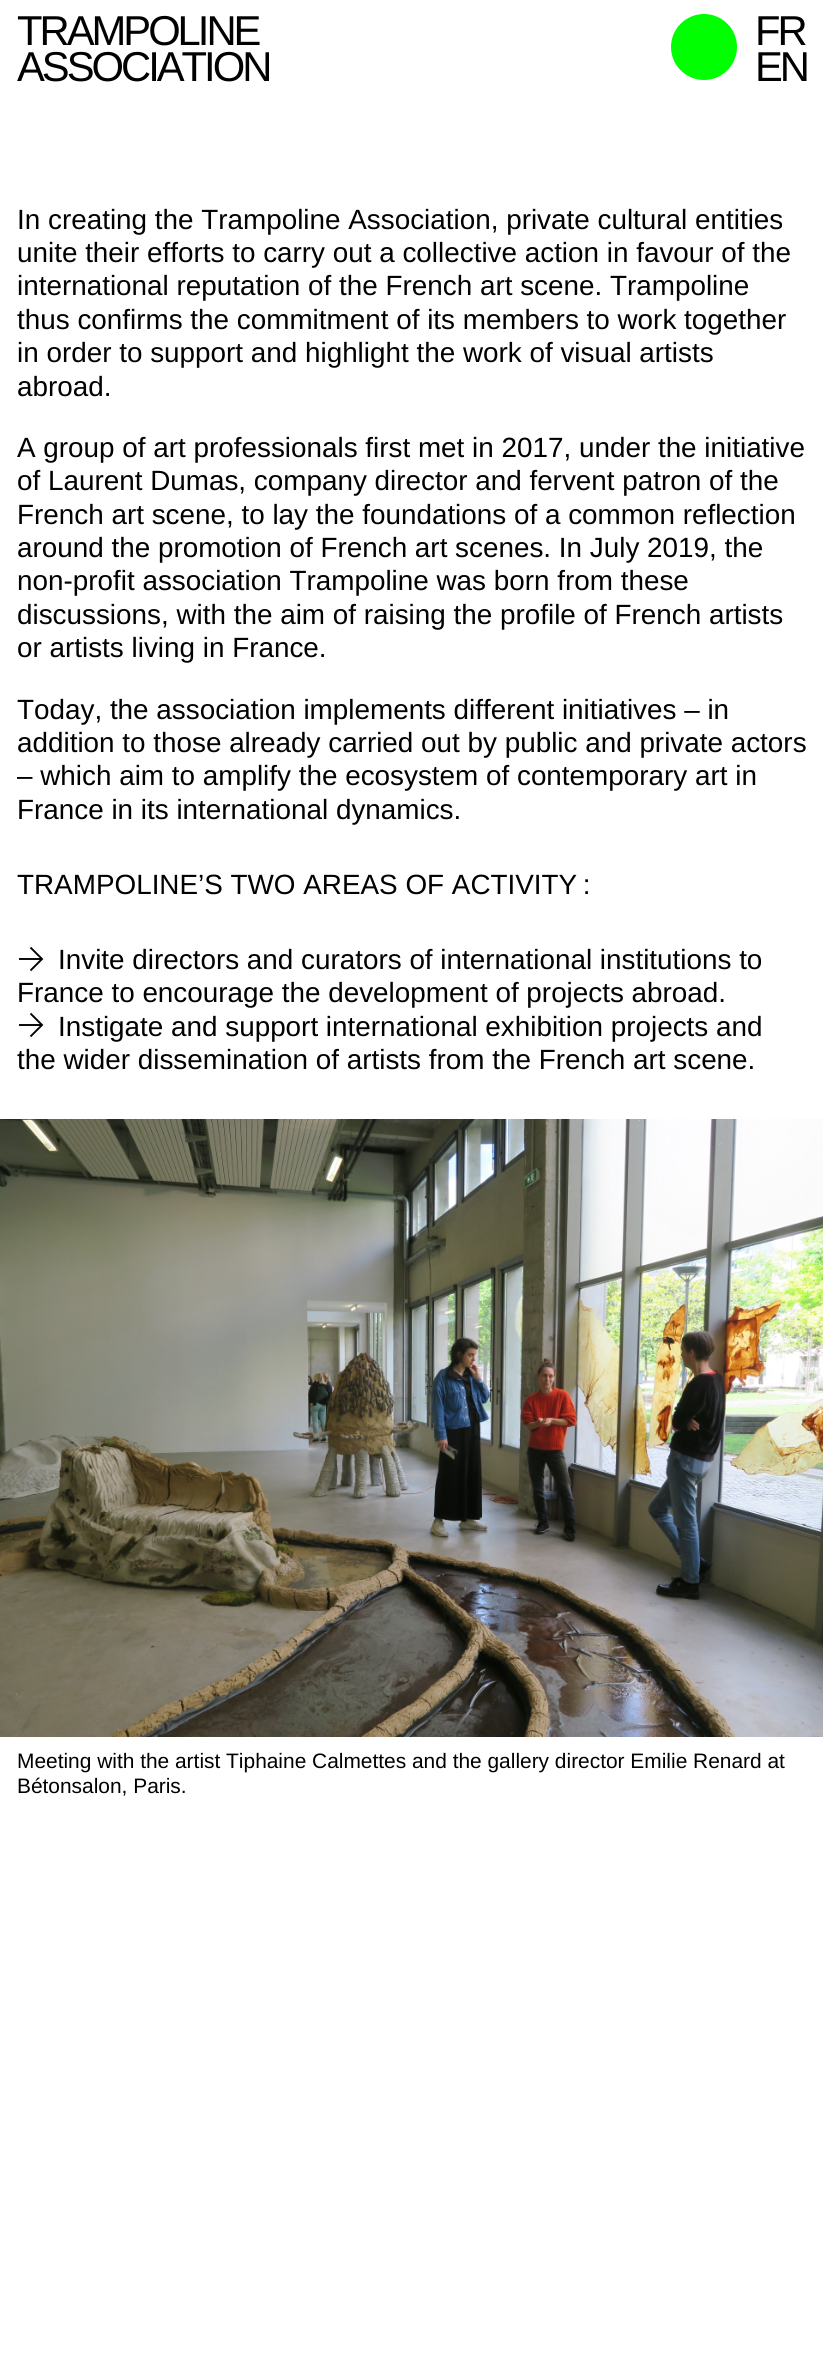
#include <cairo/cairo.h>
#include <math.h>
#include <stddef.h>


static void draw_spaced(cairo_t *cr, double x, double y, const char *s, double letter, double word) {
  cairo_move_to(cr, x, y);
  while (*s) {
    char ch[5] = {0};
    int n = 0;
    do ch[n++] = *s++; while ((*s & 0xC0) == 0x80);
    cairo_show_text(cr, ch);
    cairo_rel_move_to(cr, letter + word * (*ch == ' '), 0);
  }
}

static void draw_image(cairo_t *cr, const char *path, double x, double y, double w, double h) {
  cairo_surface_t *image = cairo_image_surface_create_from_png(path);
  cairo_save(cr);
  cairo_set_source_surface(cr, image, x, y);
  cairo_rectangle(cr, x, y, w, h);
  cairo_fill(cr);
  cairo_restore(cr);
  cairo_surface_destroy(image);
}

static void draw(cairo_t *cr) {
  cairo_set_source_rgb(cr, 1, 1, 1);
  cairo_paint(cr);
  cairo_set_source_rgb(cr, 0, 1, 0);
  cairo_arc(cr, 704, 47, 33, 0, 2 * M_PI);
  cairo_fill(cr);
  cairo_set_source_rgb(cr, 13 / 255.0, 13 / 255.0, 13 / 255.0);
  cairo_rectangle(cr, 19, 958, 23, 2);
  cairo_fill(cr);
  cairo_new_path(cr);
  cairo_move_to(cr, 30.5, 970.5);
  cairo_line_to(cr, 42, 959);
  cairo_line_to(cr, 30.5, 947.5);
  cairo_set_source_rgb(cr, 0, 0, 0);
  cairo_set_line_width(cr, 1.9);
  cairo_stroke(cr);
  cairo_set_source_rgb(cr, 13 / 255.0, 13 / 255.0, 13 / 255.0);
  cairo_rectangle(cr, 19, 1024, 23, 2);
  cairo_fill(cr);
  cairo_new_path(cr);
  cairo_move_to(cr, 30.5, 1036.5);
  cairo_line_to(cr, 42, 1025);
  cairo_line_to(cr, 30.5, 1013.5);
  cairo_set_source_rgb(cr, 0, 0, 0);
  cairo_stroke(cr);
  draw_image(cr, "images/1.png", 0, 1119, 823, 618);
  cairo_select_font_face(cr, "Liberation Sans", CAIRO_FONT_SLANT_NORMAL, CAIRO_FONT_WEIGHT_NORMAL);
  cairo_set_font_size(cr, 41.75);
  draw_spaced(cr, 17, 45, "TRAMPOLINE", -3, 0);
  draw_spaced(cr, 17, 81, "ASSOCIATION", -3, 0);
  draw_spaced(cr, 755, 45, "FR", -3, 0);
  draw_spaced(cr, 755, 81, "EN", -3, 0);
  cairo_set_font_size(cr, 27.85);
  cairo_move_to(cr, 17, 229);
  cairo_show_text(cr, "In creating the Trampoline Association, private cultural entities");
  cairo_move_to(cr, 17, 262);
  cairo_show_text(cr, "unite their efforts to carry out a collective action in favour of the");
  cairo_move_to(cr, 17, 295);
  cairo_show_text(cr, "international reputation of the French art scene. Trampoline");
  cairo_move_to(cr, 17, 329);
  cairo_show_text(cr, "thus confirms the commitment of its members to work together");
  cairo_move_to(cr, 17, 362);
  cairo_show_text(cr, "in order to support and highlight the work of visual artists");
  cairo_move_to(cr, 17, 396);
  cairo_show_text(cr, "abroad.");
  cairo_move_to(cr, 17, 457);
  cairo_show_text(cr, "A group of art professionals first met in 2017, under the initiative");
  cairo_move_to(cr, 17, 490);
  cairo_show_text(cr, "of Laurent Dumas, company director and fervent patron of the");
  cairo_move_to(cr, 17, 524);
  cairo_show_text(cr, "French art scene, to lay the foundations of a common reflection");
  cairo_move_to(cr, 17, 557);
  cairo_show_text(cr, "around the promotion of French art scenes. In July 2019, the");
  cairo_move_to(cr, 17, 590);
  cairo_show_text(cr, "non-profit association Trampoline was born from these");
  cairo_move_to(cr, 17, 624);
  cairo_show_text(cr, "discussions, with the aim of raising the profile of French artists");
  cairo_move_to(cr, 17, 657);
  cairo_show_text(cr, "or artists living in France.");
  cairo_move_to(cr, 17, 719);
  cairo_show_text(cr, "Today, the association implements different initiatives – in");
  cairo_move_to(cr, 17, 752);
  cairo_show_text(cr, "addition to those already carried out by public and private actors");
  cairo_move_to(cr, 17, 785);
  cairo_show_text(cr, "– which aim to amplify the ecosystem of contemporary art in");
  cairo_move_to(cr, 17, 819);
  cairo_show_text(cr, "France in its international dynamics.");
  cairo_move_to(cr, 17, 894);
  cairo_show_text(cr, "TRAMPOLINE’S TWO AREAS OF ACTIVITY :");
  cairo_move_to(cr, 58, 969);
  cairo_show_text(cr, "Invite directors and curators of international institutions to");
  cairo_move_to(cr, 17, 1002);
  cairo_show_text(cr, "France to encourage the development of projects abroad.");
  cairo_move_to(cr, 58, 1036);
  cairo_show_text(cr, "Instigate and support international exhibition projects and");
  cairo_move_to(cr, 17, 1069);
  cairo_show_text(cr, "the wider dissemination of artists from the French art scene.");
  cairo_set_font_size(cr, 20.9);
  cairo_move_to(cr, 17, 1768);
  cairo_show_text(cr, "Meeting with the artist Tiphaine Calmettes and the gallery director Emilie Renard at");
  cairo_move_to(cr, 17, 1793);
  cairo_show_text(cr, "Bétonsalon, Paris.");
}

int main(void) {
  cairo_surface_t *surface = cairo_image_surface_create(CAIRO_FORMAT_RGB24, 823, 2365);
  cairo_t *cr = cairo_create(surface);
  cairo_font_options_t *options = cairo_font_options_create();
  cairo_font_options_set_hint_metrics(options, CAIRO_HINT_METRICS_OFF);
  cairo_font_options_set_hint_style(options, CAIRO_HINT_STYLE_NONE);
  cairo_set_font_options(cr, options);
  cairo_set_miter_limit(cr, 4);
  draw(cr);
  cairo_surface_write_to_png(surface, "out.png");
  cairo_font_options_destroy(options);
  cairo_destroy(cr);
  cairo_surface_destroy(surface);
  return 0;
}
